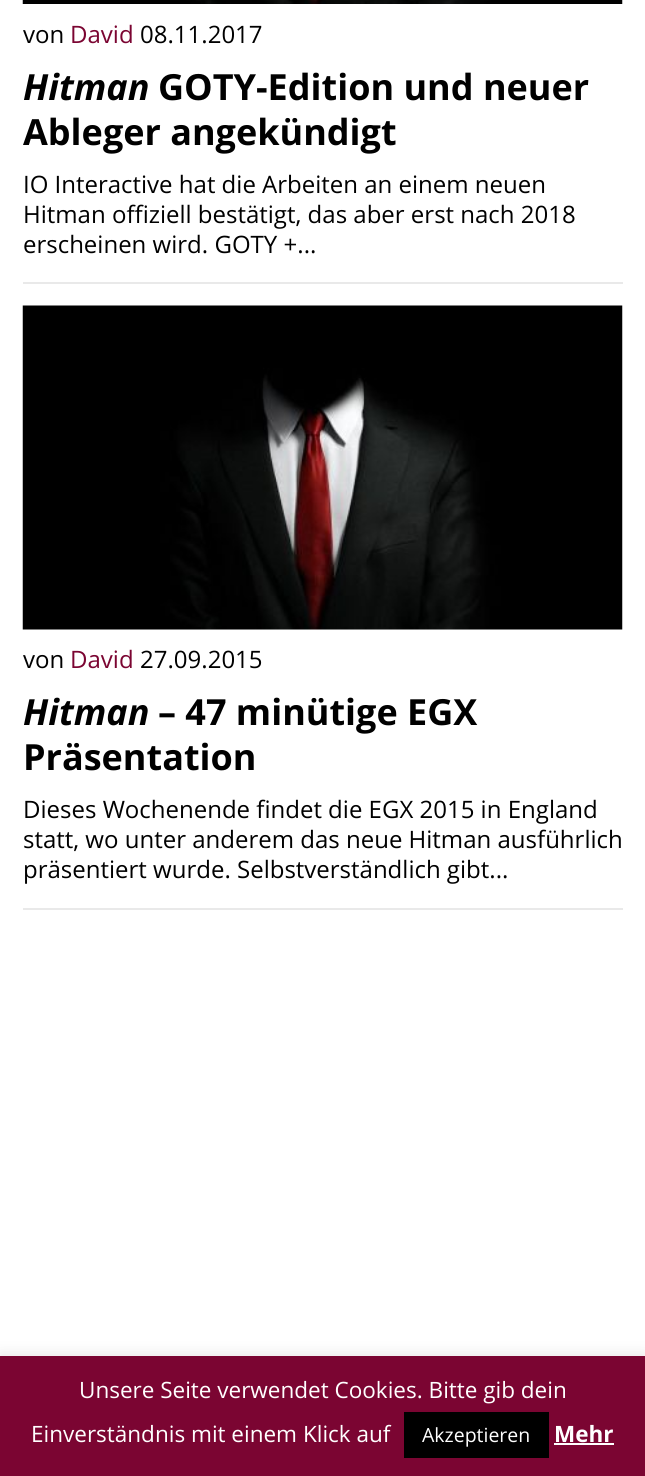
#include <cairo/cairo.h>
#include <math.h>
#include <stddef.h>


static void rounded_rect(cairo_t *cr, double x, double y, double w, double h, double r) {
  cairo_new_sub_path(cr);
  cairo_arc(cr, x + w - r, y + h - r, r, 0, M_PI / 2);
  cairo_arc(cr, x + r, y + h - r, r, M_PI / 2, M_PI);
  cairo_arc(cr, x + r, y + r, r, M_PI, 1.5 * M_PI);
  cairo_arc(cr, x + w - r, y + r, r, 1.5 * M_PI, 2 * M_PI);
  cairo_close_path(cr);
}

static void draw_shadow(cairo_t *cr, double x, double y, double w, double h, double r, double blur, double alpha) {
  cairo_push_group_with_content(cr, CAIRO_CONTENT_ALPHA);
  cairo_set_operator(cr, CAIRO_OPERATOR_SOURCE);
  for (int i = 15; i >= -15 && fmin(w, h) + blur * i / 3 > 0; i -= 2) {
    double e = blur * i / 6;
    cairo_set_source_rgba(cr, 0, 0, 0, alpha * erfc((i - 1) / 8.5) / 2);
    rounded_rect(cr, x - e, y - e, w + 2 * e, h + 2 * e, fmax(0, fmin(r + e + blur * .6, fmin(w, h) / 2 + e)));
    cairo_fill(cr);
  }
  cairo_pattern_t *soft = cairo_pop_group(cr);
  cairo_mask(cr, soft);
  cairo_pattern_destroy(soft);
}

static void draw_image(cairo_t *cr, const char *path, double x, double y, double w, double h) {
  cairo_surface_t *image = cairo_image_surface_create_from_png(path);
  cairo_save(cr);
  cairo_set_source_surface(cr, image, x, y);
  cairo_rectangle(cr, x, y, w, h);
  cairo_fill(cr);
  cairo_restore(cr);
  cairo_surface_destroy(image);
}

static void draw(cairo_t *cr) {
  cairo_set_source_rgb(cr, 1, 1, 1);
  cairo_paint(cr);
  draw_image(cr, "images/1.png", 22, 0, 601, 4);
  cairo_set_source_rgb(cr, 233 / 255.0, 233 / 255.0, 233 / 255.0);
  cairo_rectangle(cr, 23, 282, 600, 2);
  cairo_fill(cr);
  draw_image(cr, "images/2.png", 22, 305, 601, 325);
  cairo_rectangle(cr, 23, 908, 600, 2);
  cairo_fill(cr);
  cairo_set_source_rgb(cr, 172 / 255.0, 171 / 255.0, 171 / 255.0);
  draw_shadow(cr, 0, 1355, 645, 120, 0, 7.5, 0.3);
  cairo_set_source_rgb(cr, 123 / 255.0, 5 / 255.0, 50 / 255.0);
  cairo_rectangle(cr, 0, 1356, 645, 120);
  cairo_fill(cr);
  cairo_set_source_rgb(cr, 0, 0, 0);
  cairo_rectangle(cr, 404, 1412, 145, 46);
  cairo_fill(cr);
  cairo_set_source_rgb(cr, 1, 1, 1);
  cairo_rectangle(cr, 554, 1443, 60, 2);
  cairo_fill(cr);
  cairo_select_font_face(cr, "Open Sans", CAIRO_FONT_SLANT_NORMAL, CAIRO_FONT_WEIGHT_NORMAL);
  cairo_set_font_size(cr, 24);
  cairo_set_source_rgb(cr, 0, 0, 0);
  cairo_move_to(cr, 23, 43);
  cairo_show_text(cr, "von");
  cairo_set_source_rgb(cr, 123 / 255.0, 5 / 255.0, 50 / 255.0);
  cairo_move_to(cr, 70, 43);
  cairo_show_text(cr, "David");
  cairo_set_source_rgb(cr, 0, 0, 0);
  cairo_move_to(cr, 140, 43);
  cairo_show_text(cr, "08.11.2017");
  cairo_select_font_face(cr, "Open Sans", CAIRO_FONT_SLANT_ITALIC, CAIRO_FONT_WEIGHT_BOLD);
  cairo_set_font_size(cr, 36);
  cairo_move_to(cr, 23, 100);
  cairo_show_text(cr, "Hitman");
  cairo_select_font_face(cr, "Open Sans", CAIRO_FONT_SLANT_NORMAL, CAIRO_FONT_WEIGHT_BOLD);
  cairo_move_to(cr, 158, 100);
  cairo_show_text(cr, "GOTY-Edition und neuer");
  cairo_move_to(cr, 23, 145);
  cairo_show_text(cr, "Ableger angekündigt");
  cairo_select_font_face(cr, "Open Sans", CAIRO_FONT_SLANT_NORMAL, CAIRO_FONT_WEIGHT_NORMAL);
  cairo_set_font_size(cr, 24);
  cairo_move_to(cr, 23, 193);
  cairo_show_text(cr, "IO Interactive hat die Arbeiten an einem neuen");
  cairo_move_to(cr, 23, 223);
  cairo_show_text(cr, "Hitman offiziell bestätigt, das aber erst nach 2018");
  cairo_move_to(cr, 23, 253);
  cairo_show_text(cr, "erscheinen wird. GOTY +...");
  cairo_move_to(cr, 23, 668);
  cairo_show_text(cr, "von");
  cairo_set_source_rgb(cr, 123 / 255.0, 5 / 255.0, 50 / 255.0);
  cairo_move_to(cr, 70, 668);
  cairo_show_text(cr, "David");
  cairo_set_source_rgb(cr, 0, 0, 0);
  cairo_move_to(cr, 140, 668);
  cairo_show_text(cr, "27.09.2015");
  cairo_select_font_face(cr, "Open Sans", CAIRO_FONT_SLANT_ITALIC, CAIRO_FONT_WEIGHT_BOLD);
  cairo_set_font_size(cr, 36);
  cairo_move_to(cr, 23, 725);
  cairo_show_text(cr, "Hitman");
  cairo_select_font_face(cr, "Open Sans", CAIRO_FONT_SLANT_NORMAL, CAIRO_FONT_WEIGHT_BOLD);
  cairo_move_to(cr, 158, 725);
  cairo_show_text(cr, "– 47 minütige EGX");
  cairo_move_to(cr, 23, 770);
  cairo_show_text(cr, "Präsentation");
  cairo_select_font_face(cr, "Open Sans", CAIRO_FONT_SLANT_NORMAL, CAIRO_FONT_WEIGHT_NORMAL);
  cairo_set_font_size(cr, 24);
  cairo_move_to(cr, 23, 818);
  cairo_show_text(cr, "Dieses Wochenende findet die EGX 2015 in England");
  cairo_move_to(cr, 23, 848);
  cairo_show_text(cr, "statt, wo unter anderem das neue Hitman ausführlich");
  cairo_move_to(cr, 23, 878);
  cairo_show_text(cr, "präsentiert wurde. Selbstverständlich gibt...");
  cairo_set_font_size(cr, 22.5);
  cairo_set_source_rgb(cr, 1, 1, 1);
  cairo_move_to(cr, 79, 1398);
  cairo_show_text(cr, "Unsere Seite verwendet Cookies. Bitte gib dein");
  cairo_move_to(cr, 31, 1442);
  cairo_show_text(cr, "Einverständnis mit einem Klick auf");
  cairo_set_font_size(cr, 19.5);
  cairo_move_to(cr, 422, 1442);
  cairo_show_text(cr, "Akzeptieren");
  cairo_select_font_face(cr, "Open Sans", CAIRO_FONT_SLANT_NORMAL, CAIRO_FONT_WEIGHT_BOLD);
  cairo_set_font_size(cr, 22.5);
  cairo_move_to(cr, 554, 1442);
  cairo_show_text(cr, "Mehr");
}

int main(void) {
  cairo_surface_t *surface = cairo_image_surface_create(CAIRO_FORMAT_RGB24, 645, 1476);
  cairo_t *cr = cairo_create(surface);
  cairo_font_options_t *options = cairo_font_options_create();
  cairo_font_options_set_hint_metrics(options, CAIRO_HINT_METRICS_OFF);
  cairo_font_options_set_hint_style(options, CAIRO_HINT_STYLE_NONE);
  cairo_set_font_options(cr, options);
  cairo_set_miter_limit(cr, 4);
  draw(cr);
  cairo_surface_write_to_png(surface, "out.png");
  cairo_font_options_destroy(options);
  cairo_destroy(cr);
  cairo_surface_destroy(surface);
  return 0;
}
